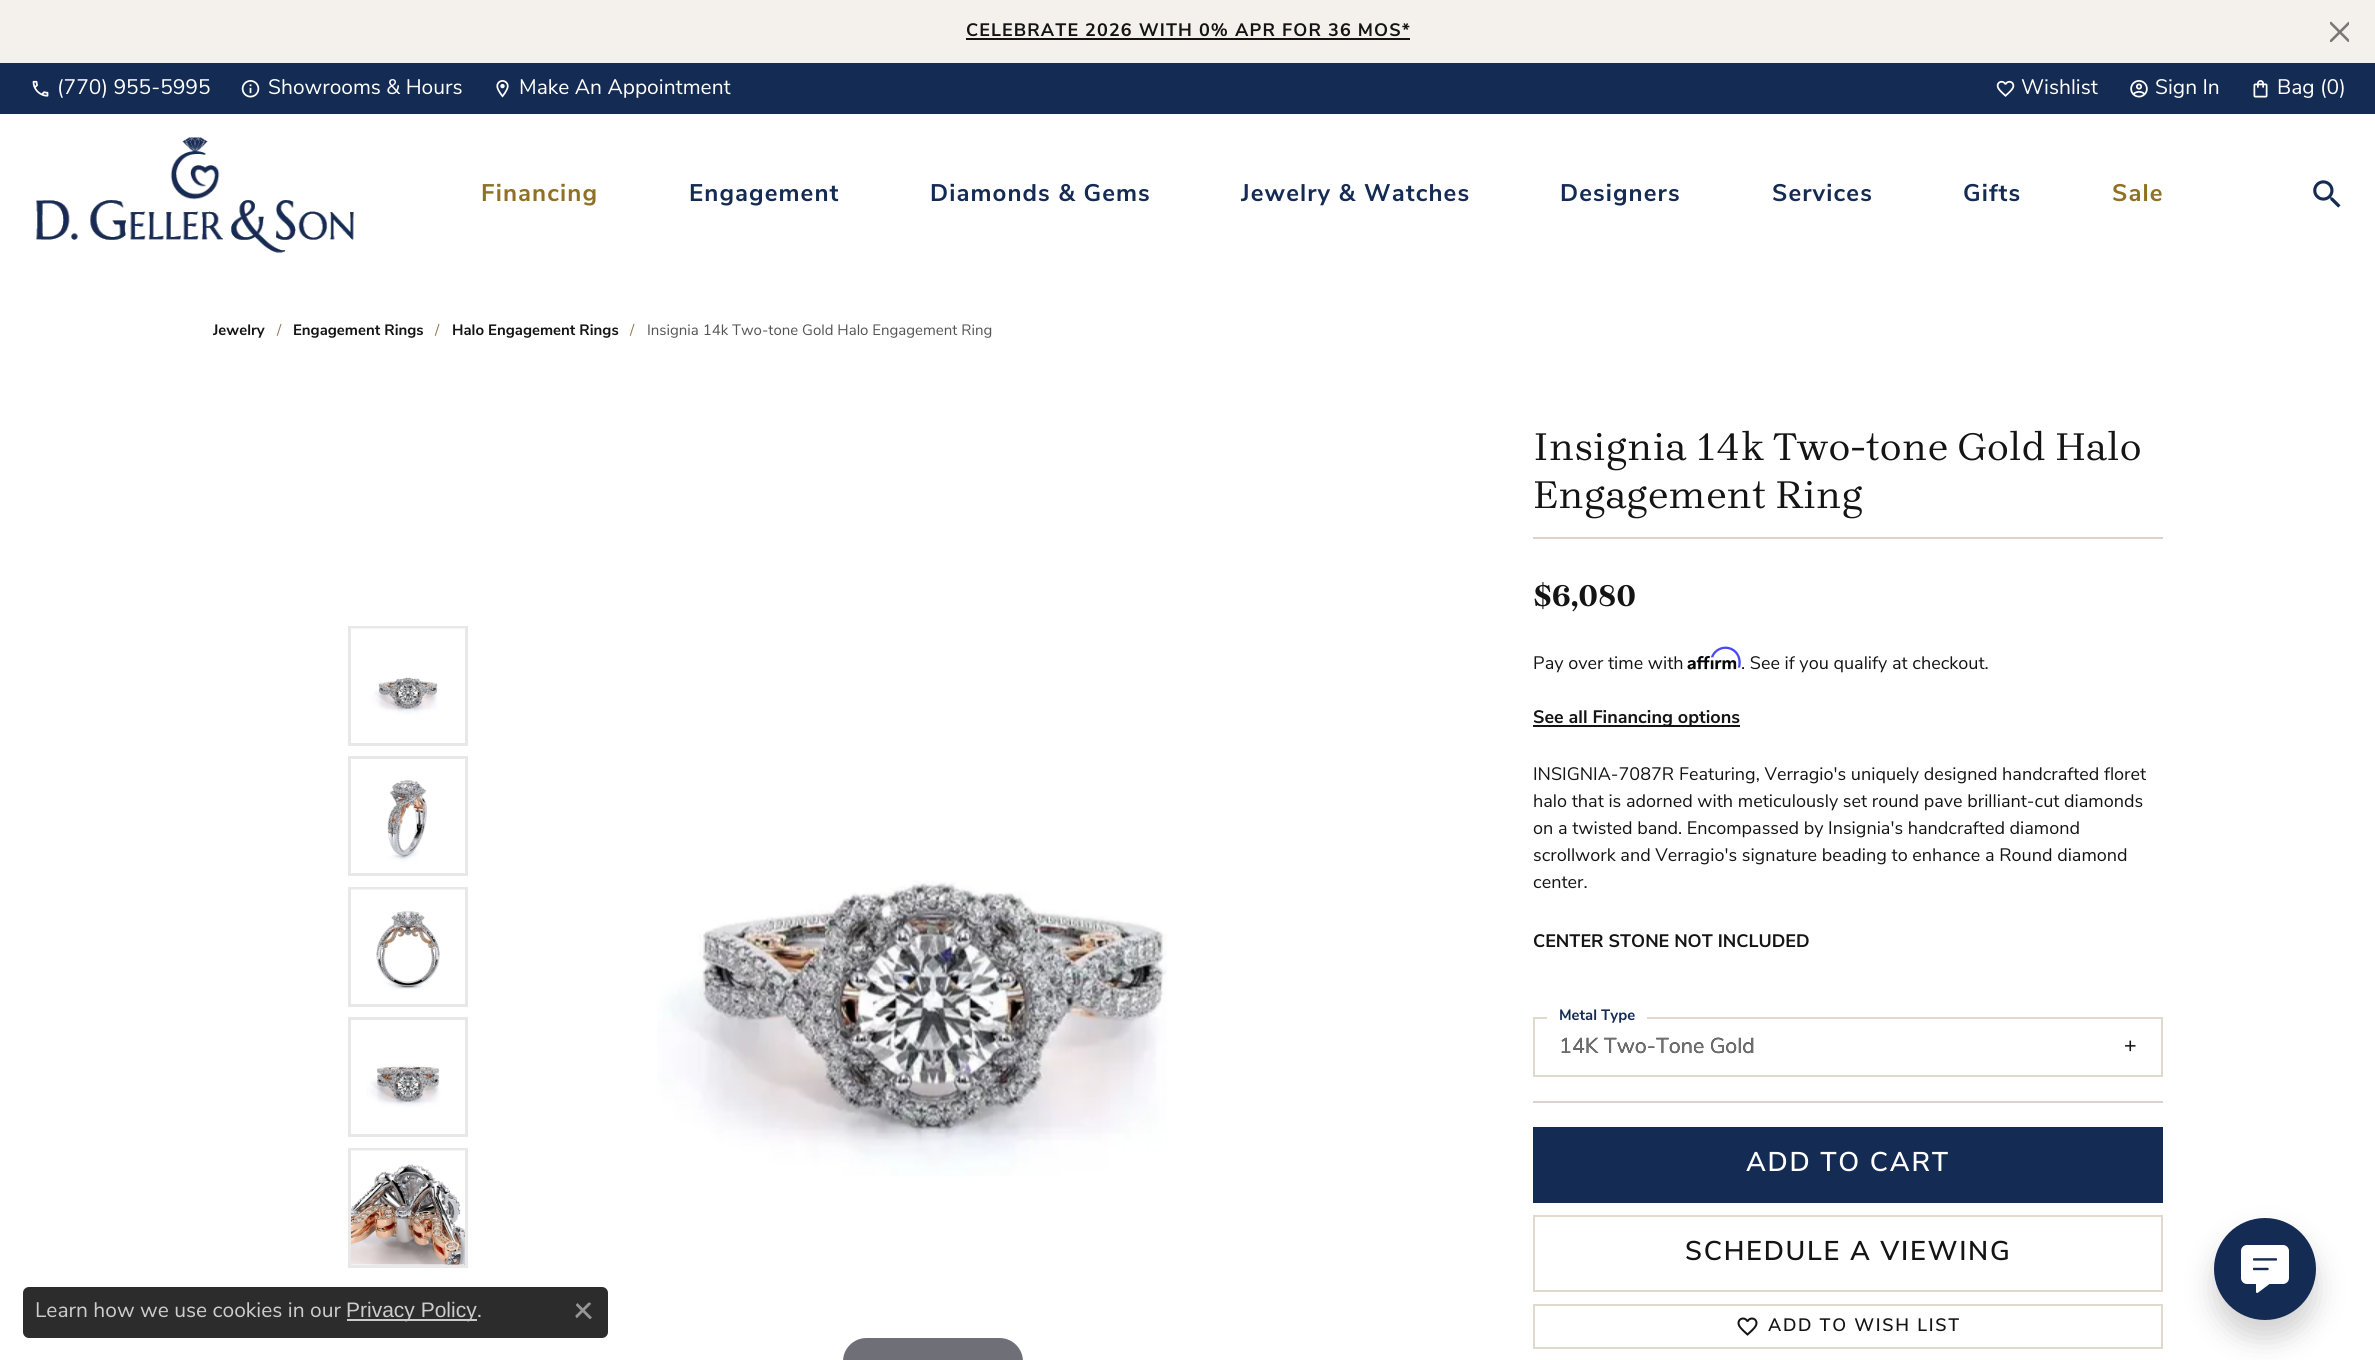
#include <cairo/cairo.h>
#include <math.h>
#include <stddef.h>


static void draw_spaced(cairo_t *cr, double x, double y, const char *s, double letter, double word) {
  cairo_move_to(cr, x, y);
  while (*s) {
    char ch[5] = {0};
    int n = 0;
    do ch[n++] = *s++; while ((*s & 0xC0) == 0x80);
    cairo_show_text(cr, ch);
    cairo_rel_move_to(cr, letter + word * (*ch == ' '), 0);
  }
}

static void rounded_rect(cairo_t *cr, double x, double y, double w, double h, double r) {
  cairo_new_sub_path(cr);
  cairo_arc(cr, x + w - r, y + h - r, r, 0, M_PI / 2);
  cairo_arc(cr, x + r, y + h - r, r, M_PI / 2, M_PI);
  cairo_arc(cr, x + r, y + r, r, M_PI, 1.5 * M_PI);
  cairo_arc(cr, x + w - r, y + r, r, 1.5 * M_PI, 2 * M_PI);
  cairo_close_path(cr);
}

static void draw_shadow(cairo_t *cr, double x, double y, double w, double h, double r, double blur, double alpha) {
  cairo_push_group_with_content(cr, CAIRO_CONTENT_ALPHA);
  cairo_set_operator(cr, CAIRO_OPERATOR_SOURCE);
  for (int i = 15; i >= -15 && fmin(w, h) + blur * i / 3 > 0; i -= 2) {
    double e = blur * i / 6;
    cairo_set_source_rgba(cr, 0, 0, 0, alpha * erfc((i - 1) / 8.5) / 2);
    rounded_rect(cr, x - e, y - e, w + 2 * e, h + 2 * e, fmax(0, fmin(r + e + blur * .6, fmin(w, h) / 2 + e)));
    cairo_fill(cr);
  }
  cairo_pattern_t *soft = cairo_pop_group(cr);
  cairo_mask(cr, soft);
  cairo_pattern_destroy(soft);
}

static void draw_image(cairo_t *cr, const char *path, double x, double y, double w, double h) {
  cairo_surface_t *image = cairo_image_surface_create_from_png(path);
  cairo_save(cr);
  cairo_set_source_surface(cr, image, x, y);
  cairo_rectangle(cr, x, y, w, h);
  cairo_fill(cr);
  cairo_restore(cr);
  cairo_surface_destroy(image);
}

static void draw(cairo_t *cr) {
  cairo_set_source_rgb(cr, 1, 1, 1);
  cairo_paint(cr);
  cairo_set_source_rgb(cr, 244 / 255.0, 240 / 255.0, 236 / 255.0);
  cairo_rectangle(cr, 0, 0, 2375, 63);
  cairo_fill(cr);
  cairo_set_source_rgb(cr, 20 / 255.0, 20 / 255.0, 20 / 255.0);
  cairo_rectangle(cr, 966, 38, 444, 2);
  cairo_fill(cr);
  draw_image(cr, "images/1.png", 2330, 21, 19, 21);
  cairo_set_source_rgb(cr, 20 / 255.0, 43 / 255.0, 84 / 255.0);
  cairo_rectangle(cr, 0, 63, 2375, 51);
  cairo_fill(cr);
  draw_image(cr, "images/2.png", 32, 80, 17, 17);
  draw_image(cr, "images/3.png", 241, 80, 19, 18);
  draw_image(cr, "images/4.png", 496, 80, 13, 18);
  draw_image(cr, "images/5.png", 1996, 80, 19, 17);
  draw_image(cr, "images/6.png", 2130, 80, 18, 18);
  draw_image(cr, "images/7.png", 2253, 80, 15, 18);
  draw_image(cr, "images/8.png", 36, 137, 318, 116);
  draw_image(cr, "images/9.png", 2313, 180, 28, 28);
  cairo_rectangle(cr, 349.5, 627.5, 117, 117);
  cairo_set_source_rgb(cr, 232 / 255.0, 232 / 255.0, 232 / 255.0);
  cairo_set_line_width(cr, 3);
  cairo_stroke(cr);
  draw_image(cr, "images/10.png", 351, 628, 114, 87);
  cairo_rectangle(cr, 349.5, 757.5, 117, 117);
  cairo_stroke(cr);
  draw_image(cr, "images/11.png", 387, 780, 40, 82);
  cairo_rectangle(cr, 349.5, 888.5, 117, 117);
  cairo_stroke(cr);
  draw_image(cr, "images/12.png", 351, 889, 114, 101);
  cairo_rectangle(cr, 349.5, 1018.5, 117, 117);
  cairo_stroke(cr);
  draw_image(cr, "images/13.png", 366, 1066, 75, 42);
  cairo_rectangle(cr, 349.5, 1149.5, 117, 117);
  cairo_stroke(cr);
  draw_image(cr, "images/14.png", 351, 1150, 114, 115);
  draw_image(cr, "images/15.png", 657, 880, 510, 296);
  cairo_set_source_rgb(cr, 111 / 255.0, 112 / 255.0, 119 / 255.0);
  rounded_rect(cr, 843, 1338, 180, 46, 23.5);
  cairo_fill(cr);
  cairo_set_source_rgb(cr, 220 / 255.0, 212 / 255.0, 204 / 255.0);
  cairo_rectangle(cr, 1533, 537, 630, 2);
  cairo_fill(cr);
  draw_image(cr, "images/17.png", 1687, 656, 50, 14);
  draw_image(cr, "images/16.png", 1710, 646, 31, 22);
  cairo_set_source_rgb(cr, 20 / 255.0, 20 / 255.0, 20 / 255.0);
  cairo_rectangle(cr, 1533, 725, 207, 2);
  cairo_fill(cr);
  cairo_rectangle(cr, 1534, 1018, 628, 58);
  cairo_set_source_rgb(cr, 225 / 255.0, 216 / 255.0, 206 / 255.0);
  cairo_set_line_width(cr, 2);
  cairo_stroke(cr);
  cairo_set_source_rgb(cr, 1, 1, 1);
  cairo_rectangle(cr, 1547, 1017, 100, 2);
  cairo_fill(cr);
  cairo_set_source_rgb(cr, 220 / 255.0, 212 / 255.0, 204 / 255.0);
  cairo_rectangle(cr, 1533, 1101, 630, 2);
  cairo_fill(cr);
  cairo_set_source_rgb(cr, 20 / 255.0, 43 / 255.0, 84 / 255.0);
  cairo_rectangle(cr, 1533, 1127, 630, 76);
  cairo_fill(cr);
  cairo_rectangle(cr, 1534, 1216, 628, 75);
  cairo_set_source_rgb(cr, 225 / 255.0, 216 / 255.0, 206 / 255.0);
  cairo_stroke(cr);
  cairo_rectangle(cr, 1534, 1305, 628, 43);
  cairo_stroke(cr);
  draw_image(cr, "images/18.png", 1737, 1317, 21, 19);
  cairo_set_source_rgb(cr, 0, 0, 0);
  draw_shadow(cr, 2214, 1236, 102, 102, 51, 14, 0.18);
  cairo_set_source_rgb(cr, 20 / 255.0, 43 / 255.0, 84 / 255.0);
  cairo_arc(cr, 2265, 1269, 51, 0, 2 * M_PI);
  cairo_fill(cr);
  draw_image(cr, "images/19.png", 2241, 1245, 48, 48);
  cairo_set_source_rgb(cr, 44 / 255.0, 44 / 255.0, 44 / 255.0);
  rounded_rect(cr, 23, 1287, 585, 51, 6);
  cairo_fill(cr);
  cairo_set_source_rgb(cr, 204 / 255.0, 204 / 255.0, 204 / 255.0);
  cairo_rectangle(cr, 347, 1319, 130, 2);
  cairo_fill(cr);
  draw_image(cr, "images/20.png", 575, 1302, 17, 18);
  cairo_select_font_face(cr, "Nunito Sans", CAIRO_FONT_SLANT_NORMAL, CAIRO_FONT_WEIGHT_BOLD);
  cairo_set_font_size(cr, 18);
  cairo_set_source_rgb(cr, 20 / 255.0, 20 / 255.0, 20 / 255.0);
  draw_spaced(cr, 966, 36, "CELEBRATE 2026 WITH 0% APR FOR 36 MOS*", 1.1, 0);
  cairo_select_font_face(cr, "Nunito Sans", CAIRO_FONT_SLANT_NORMAL, CAIRO_FONT_WEIGHT_NORMAL);
  cairo_set_font_size(cr, 21);
  cairo_set_source_rgb(cr, 1, 1, 1);
  cairo_move_to(cr, 57, 94);
  cairo_show_text(cr, "(770) 955-5995");
  cairo_move_to(cr, 268, 94);
  cairo_show_text(cr, "Showrooms & Hours");
  cairo_move_to(cr, 519, 94);
  cairo_show_text(cr, "Make An Appointment");
  cairo_move_to(cr, 2021, 94);
  cairo_show_text(cr, "Wishlist");
  cairo_move_to(cr, 2155, 94);
  cairo_show_text(cr, "Sign In");
  cairo_move_to(cr, 2277, 94);
  cairo_show_text(cr, "Bag (0)");
  cairo_select_font_face(cr, "Nunito Sans", CAIRO_FONT_SLANT_NORMAL, CAIRO_FONT_WEIGHT_BOLD);
  cairo_set_font_size(cr, 24);
  cairo_set_source_rgb(cr, 143 / 255.0, 112 / 255.0, 36 / 255.0);
  draw_spaced(cr, 481, 201, "Financing", 1.1, 0);
  cairo_set_source_rgb(cr, 20 / 255.0, 43 / 255.0, 84 / 255.0);
  draw_spaced(cr, 689, 201, "Engagement", 1.1, 0);
  draw_spaced(cr, 930, 201, "Diamonds & Gems", 1.1, 0);
  draw_spaced(cr, 1241, 201, "Jewelry & Watches", 1.1, 0);
  draw_spaced(cr, 1560, 201, "Designers", 1.1, 0);
  draw_spaced(cr, 1772, 201, "Services", 1.1, 0);
  draw_spaced(cr, 1963, 201, "Gifts", 1.1, 0);
  cairo_set_source_rgb(cr, 143 / 255.0, 112 / 255.0, 36 / 255.0);
  draw_spaced(cr, 2112, 201, "Sale", 1.1, 0);
  cairo_set_font_size(cr, 15);
  cairo_set_source_rgb(cr, 20 / 255.0, 20 / 255.0, 20 / 255.0);
  cairo_move_to(cr, 213, 335);
  cairo_show_text(cr, "Jewelry");
  cairo_select_font_face(cr, "Nunito Sans", CAIRO_FONT_SLANT_NORMAL, CAIRO_FONT_WEIGHT_NORMAL);
  cairo_set_source_rgb(cr, 154 / 255.0, 121 / 255.0, 87 / 255.0);
  cairo_move_to(cr, 277, 335);
  cairo_show_text(cr, "/");
  cairo_select_font_face(cr, "Nunito Sans", CAIRO_FONT_SLANT_NORMAL, CAIRO_FONT_WEIGHT_BOLD);
  cairo_set_source_rgb(cr, 20 / 255.0, 20 / 255.0, 20 / 255.0);
  cairo_move_to(cr, 293, 335);
  cairo_show_text(cr, "Engagement Rings");
  cairo_select_font_face(cr, "Nunito Sans", CAIRO_FONT_SLANT_NORMAL, CAIRO_FONT_WEIGHT_NORMAL);
  cairo_set_source_rgb(cr, 154 / 255.0, 121 / 255.0, 87 / 255.0);
  cairo_move_to(cr, 435, 335);
  cairo_show_text(cr, "/");
  cairo_select_font_face(cr, "Nunito Sans", CAIRO_FONT_SLANT_NORMAL, CAIRO_FONT_WEIGHT_BOLD);
  cairo_set_source_rgb(cr, 20 / 255.0, 20 / 255.0, 20 / 255.0);
  cairo_move_to(cr, 452, 335);
  cairo_show_text(cr, "Halo Engagement Rings");
  cairo_select_font_face(cr, "Nunito Sans", CAIRO_FONT_SLANT_NORMAL, CAIRO_FONT_WEIGHT_NORMAL);
  cairo_set_source_rgb(cr, 154 / 255.0, 121 / 255.0, 87 / 255.0);
  cairo_move_to(cr, 630, 335);
  cairo_show_text(cr, "/");
  cairo_set_source_rgb(cr, 84 / 255.0, 84 / 255.0, 84 / 255.0);
  cairo_move_to(cr, 647, 335);
  cairo_show_text(cr, "Insignia 14k Two-tone Gold Halo Engagement Ring");
  cairo_select_font_face(cr, "Brygada 1918", CAIRO_FONT_SLANT_NORMAL, CAIRO_FONT_WEIGHT_NORMAL);
  cairo_set_font_size(cr, 39.8);
  cairo_set_source_rgb(cr, 20 / 255.0, 20 / 255.0, 20 / 255.0);
  cairo_move_to(cr, 1533, 460);
  cairo_show_text(cr, "Insignia 14k Two-tone Gold Halo");
  cairo_move_to(cr, 1533, 508);
  cairo_show_text(cr, "Engagement Ring");
  cairo_select_font_face(cr, "Brygada 1918", CAIRO_FONT_SLANT_NORMAL, CAIRO_FONT_WEIGHT_BOLD);
  cairo_set_font_size(cr, 31);
  cairo_move_to(cr, 1533, 606);
  cairo_show_text(cr, "$6,080");
  cairo_select_font_face(cr, "Nunito Sans", CAIRO_FONT_SLANT_NORMAL, CAIRO_FONT_WEIGHT_NORMAL);
  cairo_set_font_size(cr, 18.05);
  cairo_move_to(cr, 1533, 669);
  cairo_show_text(cr, "Pay over time with");
  cairo_move_to(cr, 1741, 669);
  cairo_show_text(cr, ". See if you qualify at checkout.");
  cairo_select_font_face(cr, "Nunito Sans", CAIRO_FONT_SLANT_NORMAL, CAIRO_FONT_WEIGHT_BOLD);
  cairo_move_to(cr, 1533, 723);
  cairo_show_text(cr, "See all Financing options");
  cairo_select_font_face(cr, "Nunito Sans", CAIRO_FONT_SLANT_NORMAL, CAIRO_FONT_WEIGHT_NORMAL);
  cairo_move_to(cr, 1533, 780);
  cairo_show_text(cr, "INSIGNIA-7087R Featuring, Verragio's uniquely designed handcrafted floret");
  cairo_move_to(cr, 1533, 807);
  cairo_show_text(cr, "halo that is adorned with meticulously set round pave brilliant-cut diamonds");
  cairo_move_to(cr, 1533, 834);
  cairo_show_text(cr, "on a twisted band. Encompassed by Insignia's handcrafted diamond");
  cairo_move_to(cr, 1533, 861);
  cairo_show_text(cr, "scrollwork and Verragio's signature beading to enhance a Round diamond");
  cairo_move_to(cr, 1533, 888);
  cairo_show_text(cr, "center.");
  cairo_select_font_face(cr, "Nunito Sans", CAIRO_FONT_SLANT_NORMAL, CAIRO_FONT_WEIGHT_BOLD);
  cairo_move_to(cr, 1533, 947);
  cairo_show_text(cr, "CENTER STONE NOT INCLUDED");
  cairo_set_font_size(cr, 15);
  cairo_set_source_rgb(cr, 20 / 255.0, 43 / 255.0, 84 / 255.0);
  cairo_move_to(cr, 1559, 1020);
  cairo_show_text(cr, "Metal Type");
  cairo_select_font_face(cr, "Nunito Sans", CAIRO_FONT_SLANT_NORMAL, CAIRO_FONT_WEIGHT_NORMAL);
  cairo_set_font_size(cr, 21.5);
  cairo_set_source_rgb(cr, 20 / 255.0, 20 / 255.0, 20 / 255.0);
  cairo_move_to(cr, 1559, 1053);
  cairo_show_text(cr, "14K Two-Tone Gold");
  cairo_select_font_face(cr, "Liberation Sans", CAIRO_FONT_SLANT_NORMAL, CAIRO_FONT_WEIGHT_NORMAL);
  cairo_move_to(cr, 2124, 1053);
  cairo_show_text(cr, "+");
  cairo_select_font_face(cr, "Nunito Sans", CAIRO_FONT_SLANT_NORMAL, CAIRO_FONT_WEIGHT_NORMAL);
  cairo_set_source_rgb(cr, 111 / 255.0, 111 / 255.0, 111 / 255.0);
  cairo_move_to(cr, 1559, 1053);
  cairo_show_text(cr, "14K Two-Tone Gold");
  cairo_select_font_face(cr, "Nunito Sans SemiBold", CAIRO_FONT_SLANT_NORMAL, CAIRO_FONT_WEIGHT_NORMAL);
  cairo_set_font_size(cr, 27.1);
  cairo_set_source_rgb(cr, 1, 1, 1);
  draw_spaced(cr, 1746, 1171, "ADD TO CART", 1.7, 0);
  cairo_set_source_rgb(cr, 20 / 255.0, 20 / 255.0, 20 / 255.0);
  draw_spaced(cr, 1685, 1260, "SCHEDULE A VIEWING", 1.7, 0);
  cairo_set_font_size(cr, 18);
  draw_spaced(cr, 1768, 1331, "ADD TO WISH LIST", 1.7, 0);
  cairo_select_font_face(cr, "Nunito Sans", CAIRO_FONT_SLANT_NORMAL, CAIRO_FONT_WEIGHT_NORMAL);
  cairo_set_font_size(cr, 21);
  cairo_set_source_rgb(cr, 204 / 255.0, 204 / 255.0, 204 / 255.0);
  cairo_move_to(cr, 35, 1317);
  cairo_show_text(cr, "Learn how we use cookies in our");
  cairo_select_font_face(cr, "Liberation Sans", CAIRO_FONT_SLANT_NORMAL, CAIRO_FONT_WEIGHT_NORMAL);
  cairo_move_to(cr, 346, 1317);
  cairo_show_text(cr, "Privacy Policy");
  cairo_select_font_face(cr, "Nunito Sans", CAIRO_FONT_SLANT_NORMAL, CAIRO_FONT_WEIGHT_NORMAL);
  cairo_move_to(cr, 477, 1317);
  cairo_show_text(cr, ".");
}

int main(void) {
  cairo_surface_t *surface = cairo_image_surface_create(CAIRO_FORMAT_RGB24, 2375, 1360);
  cairo_t *cr = cairo_create(surface);
  cairo_font_options_t *options = cairo_font_options_create();
  cairo_font_options_set_hint_metrics(options, CAIRO_HINT_METRICS_OFF);
  cairo_font_options_set_hint_style(options, CAIRO_HINT_STYLE_NONE);
  cairo_set_font_options(cr, options);
  cairo_set_miter_limit(cr, 4);
  draw(cr);
  cairo_surface_write_to_png(surface, "out.png");
  cairo_font_options_destroy(options);
  cairo_destroy(cr);
  cairo_surface_destroy(surface);
  return 0;
}
